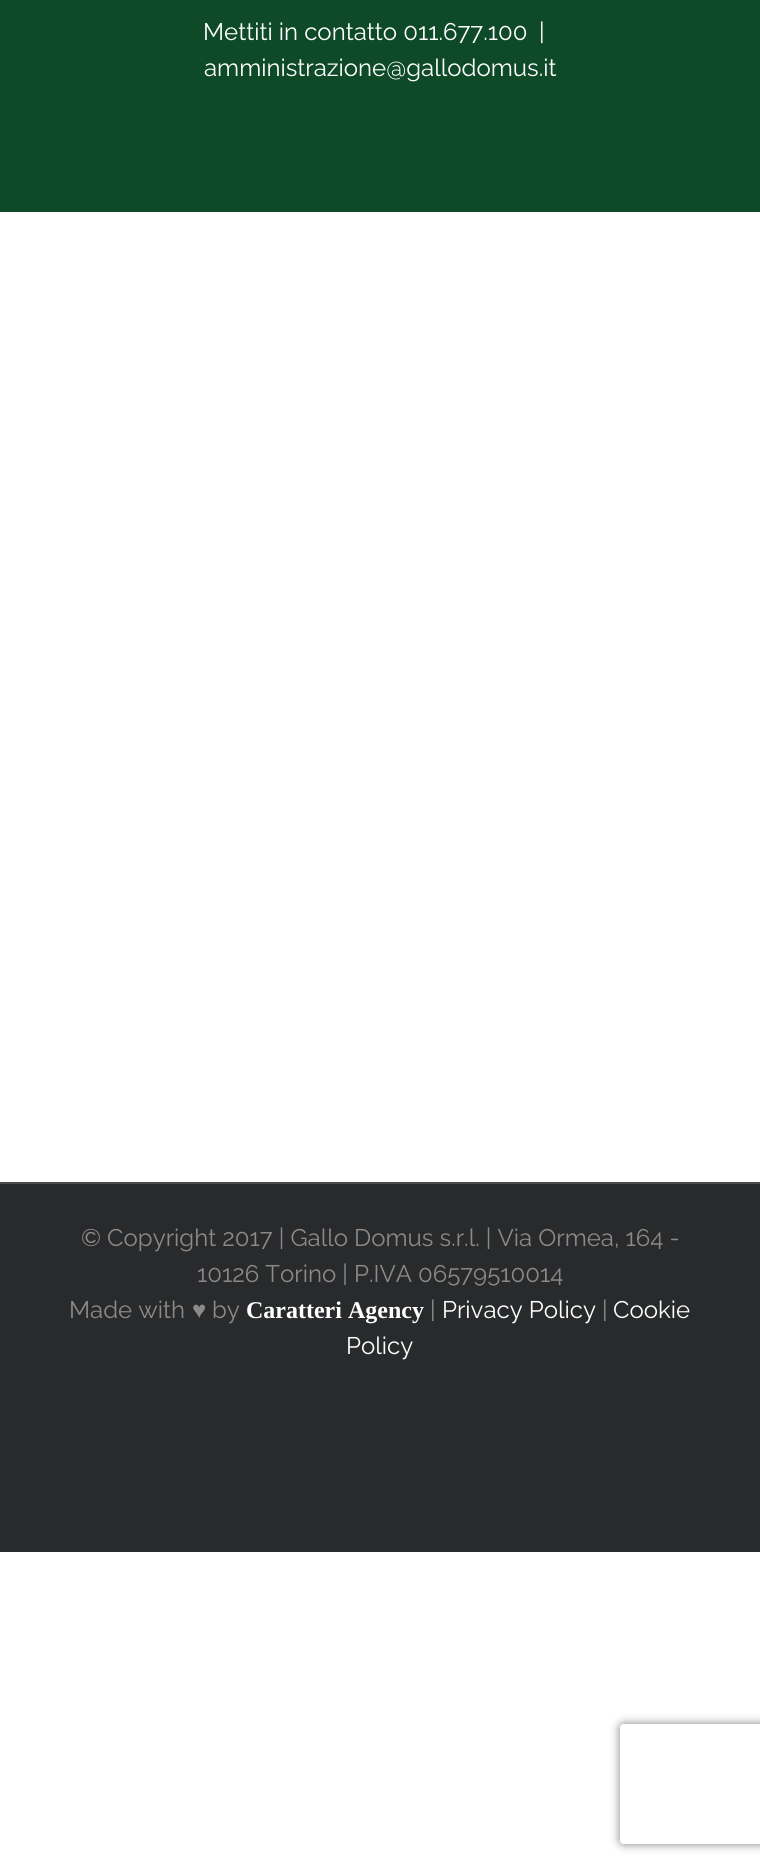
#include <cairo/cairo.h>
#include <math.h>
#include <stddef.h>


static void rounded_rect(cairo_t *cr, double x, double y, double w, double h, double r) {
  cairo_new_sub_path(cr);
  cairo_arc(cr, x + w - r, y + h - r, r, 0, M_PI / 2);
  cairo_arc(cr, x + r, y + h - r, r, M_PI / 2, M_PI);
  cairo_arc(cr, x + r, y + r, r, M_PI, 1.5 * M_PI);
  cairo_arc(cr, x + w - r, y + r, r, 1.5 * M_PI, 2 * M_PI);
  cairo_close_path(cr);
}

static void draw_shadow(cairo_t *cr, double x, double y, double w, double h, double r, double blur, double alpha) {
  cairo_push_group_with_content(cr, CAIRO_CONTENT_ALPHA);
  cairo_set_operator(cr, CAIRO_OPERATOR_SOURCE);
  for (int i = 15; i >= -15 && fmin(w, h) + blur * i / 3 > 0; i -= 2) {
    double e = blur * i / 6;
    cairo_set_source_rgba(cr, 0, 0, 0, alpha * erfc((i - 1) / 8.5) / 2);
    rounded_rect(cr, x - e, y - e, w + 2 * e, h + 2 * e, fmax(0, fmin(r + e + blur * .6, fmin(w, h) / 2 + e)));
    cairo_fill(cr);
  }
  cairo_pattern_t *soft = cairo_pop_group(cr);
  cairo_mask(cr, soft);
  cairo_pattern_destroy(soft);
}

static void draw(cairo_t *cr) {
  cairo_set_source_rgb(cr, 1, 1, 1);
  cairo_paint(cr);
  cairo_set_source_rgb(cr, 14 / 255.0, 74 / 255.0, 40 / 255.0);
  cairo_rectangle(cr, 0, 0, 760, 212);
  cairo_fill(cr);
  cairo_set_source_rgb(cr, 40 / 255.0, 42 / 255.0, 43 / 255.0);
  cairo_rectangle(cr, 0, 1184, 760, 368);
  cairo_fill(cr);
  cairo_set_source_rgb(cr, 75 / 255.0, 76 / 255.0, 77 / 255.0);
  cairo_rectangle(cr, 0, 1182, 760, 2);
  cairo_fill(cr);
  cairo_save(cr);
  cairo_set_fill_rule(cr, CAIRO_FILL_RULE_EVEN_ODD);
  cairo_new_path(cr);
  cairo_move_to(cr, 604, 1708);
  cairo_line_to(cr, 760, 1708);
  cairo_line_to(cr, 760, 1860);
  cairo_line_to(cr, 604, 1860);
  cairo_close_path(cr);
  cairo_move_to(cr, 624, 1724);
  cairo_line_to(cr, 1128, 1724);
  cairo_curve_to(cr, 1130, 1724, 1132, 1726, 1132, 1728);
  cairo_line_to(cr, 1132, 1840);
  cairo_curve_to(cr, 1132, 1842, 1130, 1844, 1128, 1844);
  cairo_line_to(cr, 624, 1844);
  cairo_curve_to(cr, 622, 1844, 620, 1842, 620, 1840);
  cairo_line_to(cr, 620, 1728);
  cairo_curve_to(cr, 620, 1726, 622, 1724, 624, 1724);
  cairo_close_path(cr);
  cairo_clip(cr);
  cairo_set_source_rgb(cr, 128 / 255.0, 128 / 255.0, 128 / 255.0);
  draw_shadow(cr, 620, 1724, 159, 120, 4, 5, 1);
  cairo_restore(cr);
  cairo_select_font_face(cr, "Raleway Thin", CAIRO_FONT_SLANT_NORMAL, CAIRO_FONT_WEIGHT_NORMAL);
  cairo_set_font_size(cr, 24);
  cairo_set_source_rgb(cr, 1, 1, 1);
  cairo_move_to(cr, 203, 40);
  cairo_show_text(cr, "Mettiti in contatto 011.677.100");
  cairo_move_to(cr, 539, 40);
  cairo_show_text(cr, "|");
  cairo_move_to(cr, 204, 76);
  cairo_show_text(cr, "amministrazione@gallodomus.it");
  cairo_set_source_rgb(cr, 140 / 255.0, 137 / 255.0, 137 / 255.0);
  cairo_move_to(cr, 81, 1246);
  cairo_show_text(cr, "© Copyright 2017 | Gallo Domus s.r.l. | Via Ormea, 164 -");
  cairo_move_to(cr, 197, 1282);
  cairo_show_text(cr, "10126 Torino | P.IVA 06579510014");
  cairo_move_to(cr, 69, 1318);
  cairo_show_text(cr, "Made with");
  cairo_select_font_face(cr, "Liberation Serif", CAIRO_FONT_SLANT_NORMAL, CAIRO_FONT_WEIGHT_NORMAL);
  cairo_move_to(cr, 192, 1318);
  cairo_show_text(cr, "♥");
  cairo_select_font_face(cr, "Raleway Thin", CAIRO_FONT_SLANT_NORMAL, CAIRO_FONT_WEIGHT_NORMAL);
  cairo_move_to(cr, 212, 1318);
  cairo_show_text(cr, "by");
  cairo_select_font_face(cr, "Liberation Serif", CAIRO_FONT_SLANT_NORMAL, CAIRO_FONT_WEIGHT_BOLD);
  cairo_set_source_rgb(cr, 1, 1, 1);
  cairo_move_to(cr, 246, 1318);
  cairo_show_text(cr, "Caratteri Agency");
  cairo_select_font_face(cr, "Raleway Thin", CAIRO_FONT_SLANT_NORMAL, CAIRO_FONT_WEIGHT_NORMAL);
  cairo_set_source_rgb(cr, 140 / 255.0, 137 / 255.0, 137 / 255.0);
  cairo_move_to(cr, 430, 1318);
  cairo_show_text(cr, "|");
  cairo_set_source_rgb(cr, 1, 1, 1);
  cairo_move_to(cr, 442, 1318);
  cairo_show_text(cr, "Privacy Policy");
  cairo_set_source_rgb(cr, 140 / 255.0, 137 / 255.0, 137 / 255.0);
  cairo_move_to(cr, 602, 1318);
  cairo_show_text(cr, "|");
  cairo_set_source_rgb(cr, 1, 1, 1);
  cairo_move_to(cr, 613, 1318);
  cairo_show_text(cr, "Cookie");
  cairo_move_to(cr, 346, 1354);
  cairo_show_text(cr, "Policy");
}

int main(void) {
  cairo_surface_t *surface = cairo_image_surface_create(CAIRO_FORMAT_RGB24, 760, 1872);
  cairo_t *cr = cairo_create(surface);
  cairo_font_options_t *options = cairo_font_options_create();
  cairo_font_options_set_hint_metrics(options, CAIRO_HINT_METRICS_OFF);
  cairo_font_options_set_hint_style(options, CAIRO_HINT_STYLE_NONE);
  cairo_set_font_options(cr, options);
  cairo_set_miter_limit(cr, 4);
  draw(cr);
  cairo_surface_write_to_png(surface, "out.png");
  cairo_font_options_destroy(options);
  cairo_destroy(cr);
  cairo_surface_destroy(surface);
  return 0;
}
